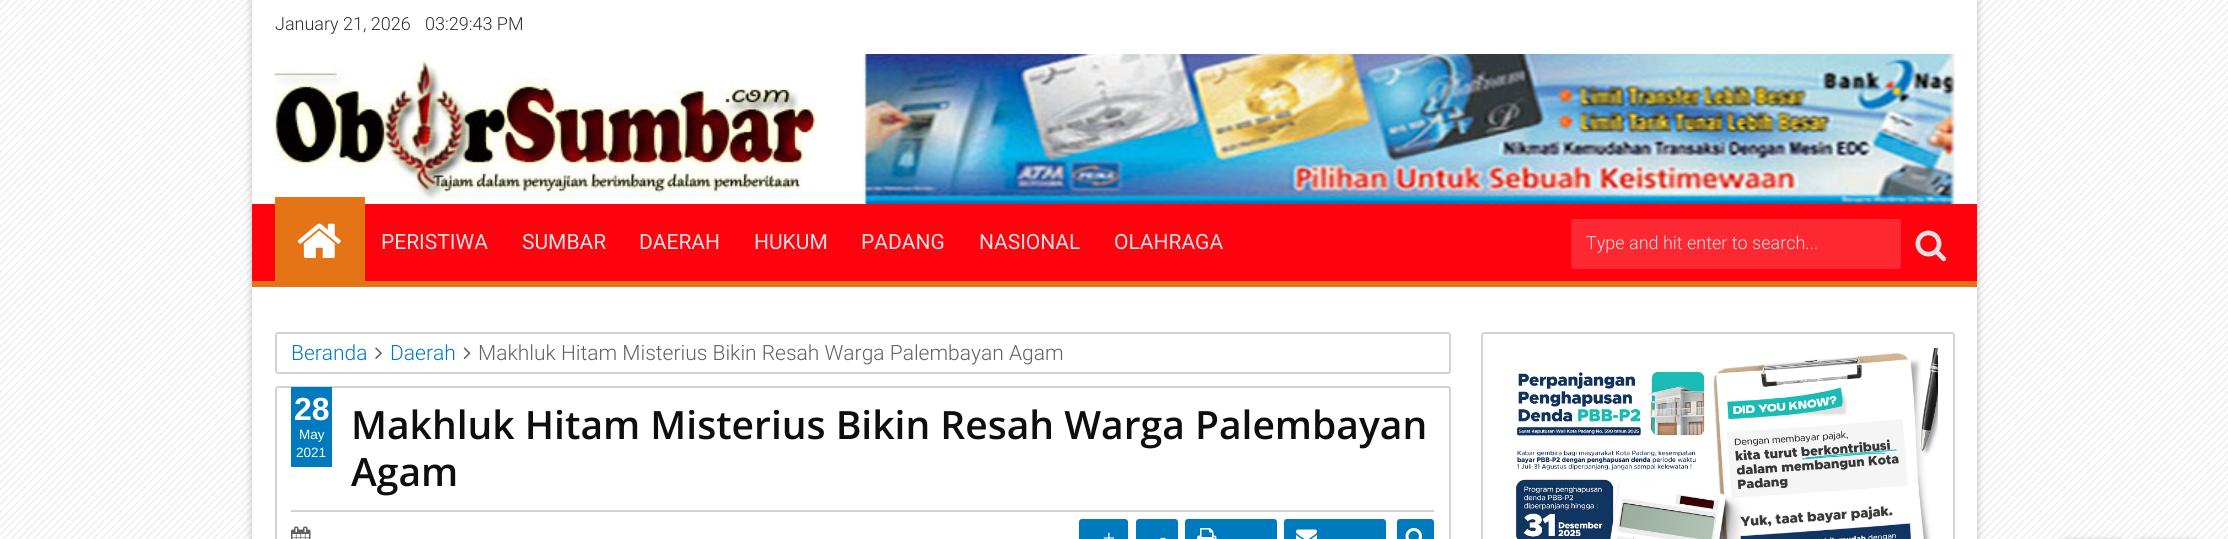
#include <cairo/cairo.h>
#include <math.h>
#include <stddef.h>


static void rounded_rect(cairo_t *cr, double x, double y, double w, double h, double r) {
  cairo_new_sub_path(cr);
  cairo_arc(cr, x + w - r, y + h - r, r, 0, M_PI / 2);
  cairo_arc(cr, x + r, y + h - r, r, M_PI / 2, M_PI);
  cairo_arc(cr, x + r, y + r, r, M_PI, 1.5 * M_PI);
  cairo_arc(cr, x + w - r, y + r, r, 1.5 * M_PI, 2 * M_PI);
  cairo_close_path(cr);
}

static void draw_shadow(cairo_t *cr, double x, double y, double w, double h, double r, double blur, double alpha) {
  cairo_push_group_with_content(cr, CAIRO_CONTENT_ALPHA);
  cairo_set_operator(cr, CAIRO_OPERATOR_SOURCE);
  for (int i = 15; i >= -15 && fmin(w, h) + blur * i / 3 > 0; i -= 2) {
    double e = blur * i / 6;
    cairo_set_source_rgba(cr, 0, 0, 0, alpha * erfc((i - 1) / 8.5) / 2);
    rounded_rect(cr, x - e, y - e, w + 2 * e, h + 2 * e, fmax(0, fmin(r + e + blur * .6, fmin(w, h) / 2 + e)));
    cairo_fill(cr);
  }
  cairo_pattern_t *soft = cairo_pop_group(cr);
  cairo_mask(cr, soft);
  cairo_pattern_destroy(soft);
}

static void draw_image(cairo_t *cr, const char *path, double x, double y, double w, double h) {
  cairo_surface_t *image = cairo_image_surface_create_from_png(path);
  cairo_save(cr);
  cairo_set_source_surface(cr, image, x, y);
  cairo_rectangle(cr, x, y, w, h);
  cairo_fill(cr);
  cairo_restore(cr);
  cairo_surface_destroy(image);
}

static void draw(cairo_t *cr) {
  cairo_set_source_rgb(cr, 1, 1, 1);
  cairo_paint(cr);
  draw_image(cr, "images/1.png", 0, 0, 2228, 539);
  cairo_set_source_rgb(cr, 0, 0, 0);
  draw_shadow(cr, 252, 0, 1725, 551, 0, 4, 0.25);
  cairo_set_source_rgb(cr, 1, 1, 1);
  cairo_rectangle(cr, 252, 0, 1725, 539);
  cairo_fill(cr);
  draw_image(cr, "images/2.png", 274, 59, 544, 142);
  draw_image(cr, "images/3.png", 862, 54, 1093, 150);
  cairo_set_source_rgb(cr, 254 / 255.0, 2 / 255.0, 14 / 255.0);
  cairo_rectangle(cr, 252, 204, 1725, 77);
  cairo_fill(cr);
  cairo_set_source_rgb(cr, 228 / 255.0, 116 / 255.0, 21 / 255.0);
  cairo_rectangle(cr, 252, 281, 1725, 6);
  cairo_fill(cr);
  cairo_rectangle(cr, 275, 197, 90, 84);
  cairo_fill(cr);
  draw_image(cr, "images/4.png", 297, 223, 44, 35);
  cairo_set_source_rgb(cr, 254 / 255.0, 40 / 255.0, 50 / 255.0);
  rounded_rect(cr, 1571, 219, 330, 50, 3);
  cairo_fill(cr);
  draw_image(cr, "images/5.png", 1915, 230, 32, 32);
  rounded_rect(cr, 276, 333, 1174, 40, 2);
  cairo_set_source_rgb(cr, 211 / 255.0, 211 / 255.0, 211 / 255.0);
  cairo_stroke(cr);
  draw_image(cr, "images/6.png", 375, 347, 7, 12);
  draw_image(cr, "images/7.png", 463, 347, 8, 12);
  rounded_rect(cr, 276, 387, 1174, 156, 2);
  cairo_stroke(cr);
  cairo_set_source_rgb(cr, 0, 122 / 255.0, 190 / 255.0);
  cairo_rectangle(cr, 291, 387, 41, 80);
  cairo_fill(cr);
  cairo_set_source_rgb(cr, 211 / 255.0, 211 / 255.0, 211 / 255.0);
  cairo_rectangle(cr, 291, 510, 1143, 2);
  cairo_fill(cr);
  draw_image(cr, "images/8.png", 291, 526, 20, 13);
  cairo_set_source_rgb(cr, 0, 122 / 255.0, 190 / 255.0);
  rounded_rect(cr, 1079, 519, 49, 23, 3);
  cairo_fill(cr);
  rounded_rect(cr, 1136, 519, 42, 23, 3);
  cairo_fill(cr);
  rounded_rect(cr, 1185, 519, 92, 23, 3);
  cairo_fill(cr);
  draw_image(cr, "images/9.png", 1197, 528, 20, 11);
  rounded_rect(cr, 1284, 519, 102, 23, 3);
  cairo_fill(cr);
  draw_image(cr, "images/10.png", 1296, 529, 21, 10);
  rounded_rect(cr, 1397, 519, 37, 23, 3);
  cairo_fill(cr);
  draw_image(cr, "images/11.png", 1405, 528, 17, 11);
  rounded_rect(cr, 1482, 333, 472, 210, 2);
  cairo_set_source_rgb(cr, 211 / 255.0, 211 / 255.0, 211 / 255.0);
  cairo_stroke(cr);
  draw_image(cr, "images/12.png", 1516, 348, 422, 191);
  cairo_set_source_rgb(cr, 0, 0, 0);
  draw_shadow(cr, 2061, 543, 63, 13, 5, 4, 0.5);
  draw_shadow(cr, 2136, 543, 63, 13, 5, 4, 0.5);
  cairo_select_font_face(cr, "Roboto Light", CAIRO_FONT_SLANT_NORMAL, CAIRO_FONT_WEIGHT_NORMAL);
  cairo_set_font_size(cr, 18);
  cairo_set_source_rgb(cr, 46 / 255.0, 46 / 255.0, 46 / 255.0);
  cairo_move_to(cr, 275, 30);
  cairo_show_text(cr, "January 21, 2026");
  cairo_move_to(cr, 425, 30);
  cairo_show_text(cr, "03:29:43 PM");
  cairo_select_font_face(cr, "Roboto", CAIRO_FONT_SLANT_NORMAL, CAIRO_FONT_WEIGHT_NORMAL);
  cairo_set_font_size(cr, 21);
  cairo_set_source_rgb(cr, 226 / 255.0, 226 / 255.0, 226 / 255.0);
  cairo_move_to(cr, 381, 249);
  cairo_show_text(cr, "PERISTIWA");
  cairo_move_to(cr, 522, 249);
  cairo_show_text(cr, "SUMBAR");
  cairo_move_to(cr, 639, 249);
  cairo_show_text(cr, "DAERAH");
  cairo_move_to(cr, 754, 249);
  cairo_show_text(cr, "HUKUM");
  cairo_move_to(cr, 861, 249);
  cairo_show_text(cr, "PADANG");
  cairo_move_to(cr, 979, 249);
  cairo_show_text(cr, "NASIONAL");
  cairo_move_to(cr, 1114, 249);
  cairo_show_text(cr, "OLAHRAGA");
  cairo_select_font_face(cr, "Roboto Light", CAIRO_FONT_SLANT_NORMAL, CAIRO_FONT_WEIGHT_NORMAL);
  cairo_set_font_size(cr, 18);
  cairo_move_to(cr, 1586, 249);
  cairo_show_text(cr, "Type and hit enter to search...");
  cairo_set_font_size(cr, 21);
  cairo_set_source_rgb(cr, 0, 122 / 255.0, 190 / 255.0);
  cairo_move_to(cr, 291, 360);
  cairo_show_text(cr, "Beranda");
  cairo_move_to(cr, 390, 360);
  cairo_show_text(cr, "Daerah");
  cairo_set_source_rgb(cr, 97 / 255.0, 97 / 255.0, 97 / 255.0);
  cairo_move_to(cr, 478, 360);
  cairo_show_text(cr, "Makhluk Hitam Misterius Bikin Resah Warga Palembayan Agam");
  cairo_select_font_face(cr, "Liberation Sans", CAIRO_FONT_SLANT_NORMAL, CAIRO_FONT_WEIGHT_BOLD);
  cairo_set_font_size(cr, 32);
  cairo_set_source_rgb(cr, 1, 1, 1);
  cairo_move_to(cr, 294, 420);
  cairo_show_text(cr, "28");
  cairo_select_font_face(cr, "Liberation Sans", CAIRO_FONT_SLANT_NORMAL, CAIRO_FONT_WEIGHT_NORMAL);
  cairo_set_font_size(cr, 13.5);
  cairo_move_to(cr, 299, 439);
  cairo_show_text(cr, "May");
  cairo_move_to(cr, 296, 457);
  cairo_show_text(cr, "2021");
  cairo_select_font_face(cr, "Open Sans SemiBold", CAIRO_FONT_SLANT_NORMAL, CAIRO_FONT_WEIGHT_NORMAL);
  cairo_set_font_size(cr, 39);
  cairo_set_source_rgb(cr, 14 / 255.0, 14 / 255.0, 14 / 255.0);
  cairo_move_to(cr, 351, 439);
  cairo_show_text(cr, "Makhluk Hitam Misterius Bikin Resah Warga Palembayan");
  cairo_move_to(cr, 351, 486);
  cairo_show_text(cr, "Agam");
  cairo_select_font_face(cr, "Roboto Light", CAIRO_FONT_SLANT_NORMAL, CAIRO_FONT_WEIGHT_NORMAL);
  cairo_set_font_size(cr, 21);
  cairo_set_source_rgb(cr, 1, 1, 1);
  cairo_move_to(cr, 1103, 545);
  cairo_show_text(cr, "+");
  cairo_move_to(cr, 1160, 545);
  cairo_show_text(cr, "-");
}

int main(void) {
  cairo_surface_t *surface = cairo_image_surface_create(CAIRO_FORMAT_RGB24, 2228, 539);
  cairo_t *cr = cairo_create(surface);
  cairo_font_options_t *options = cairo_font_options_create();
  cairo_font_options_set_hint_metrics(options, CAIRO_HINT_METRICS_OFF);
  cairo_font_options_set_hint_style(options, CAIRO_HINT_STYLE_NONE);
  cairo_set_font_options(cr, options);
  cairo_set_miter_limit(cr, 4);
  draw(cr);
  cairo_surface_write_to_png(surface, "out.png");
  cairo_font_options_destroy(options);
  cairo_destroy(cr);
  cairo_surface_destroy(surface);
  return 0;
}
